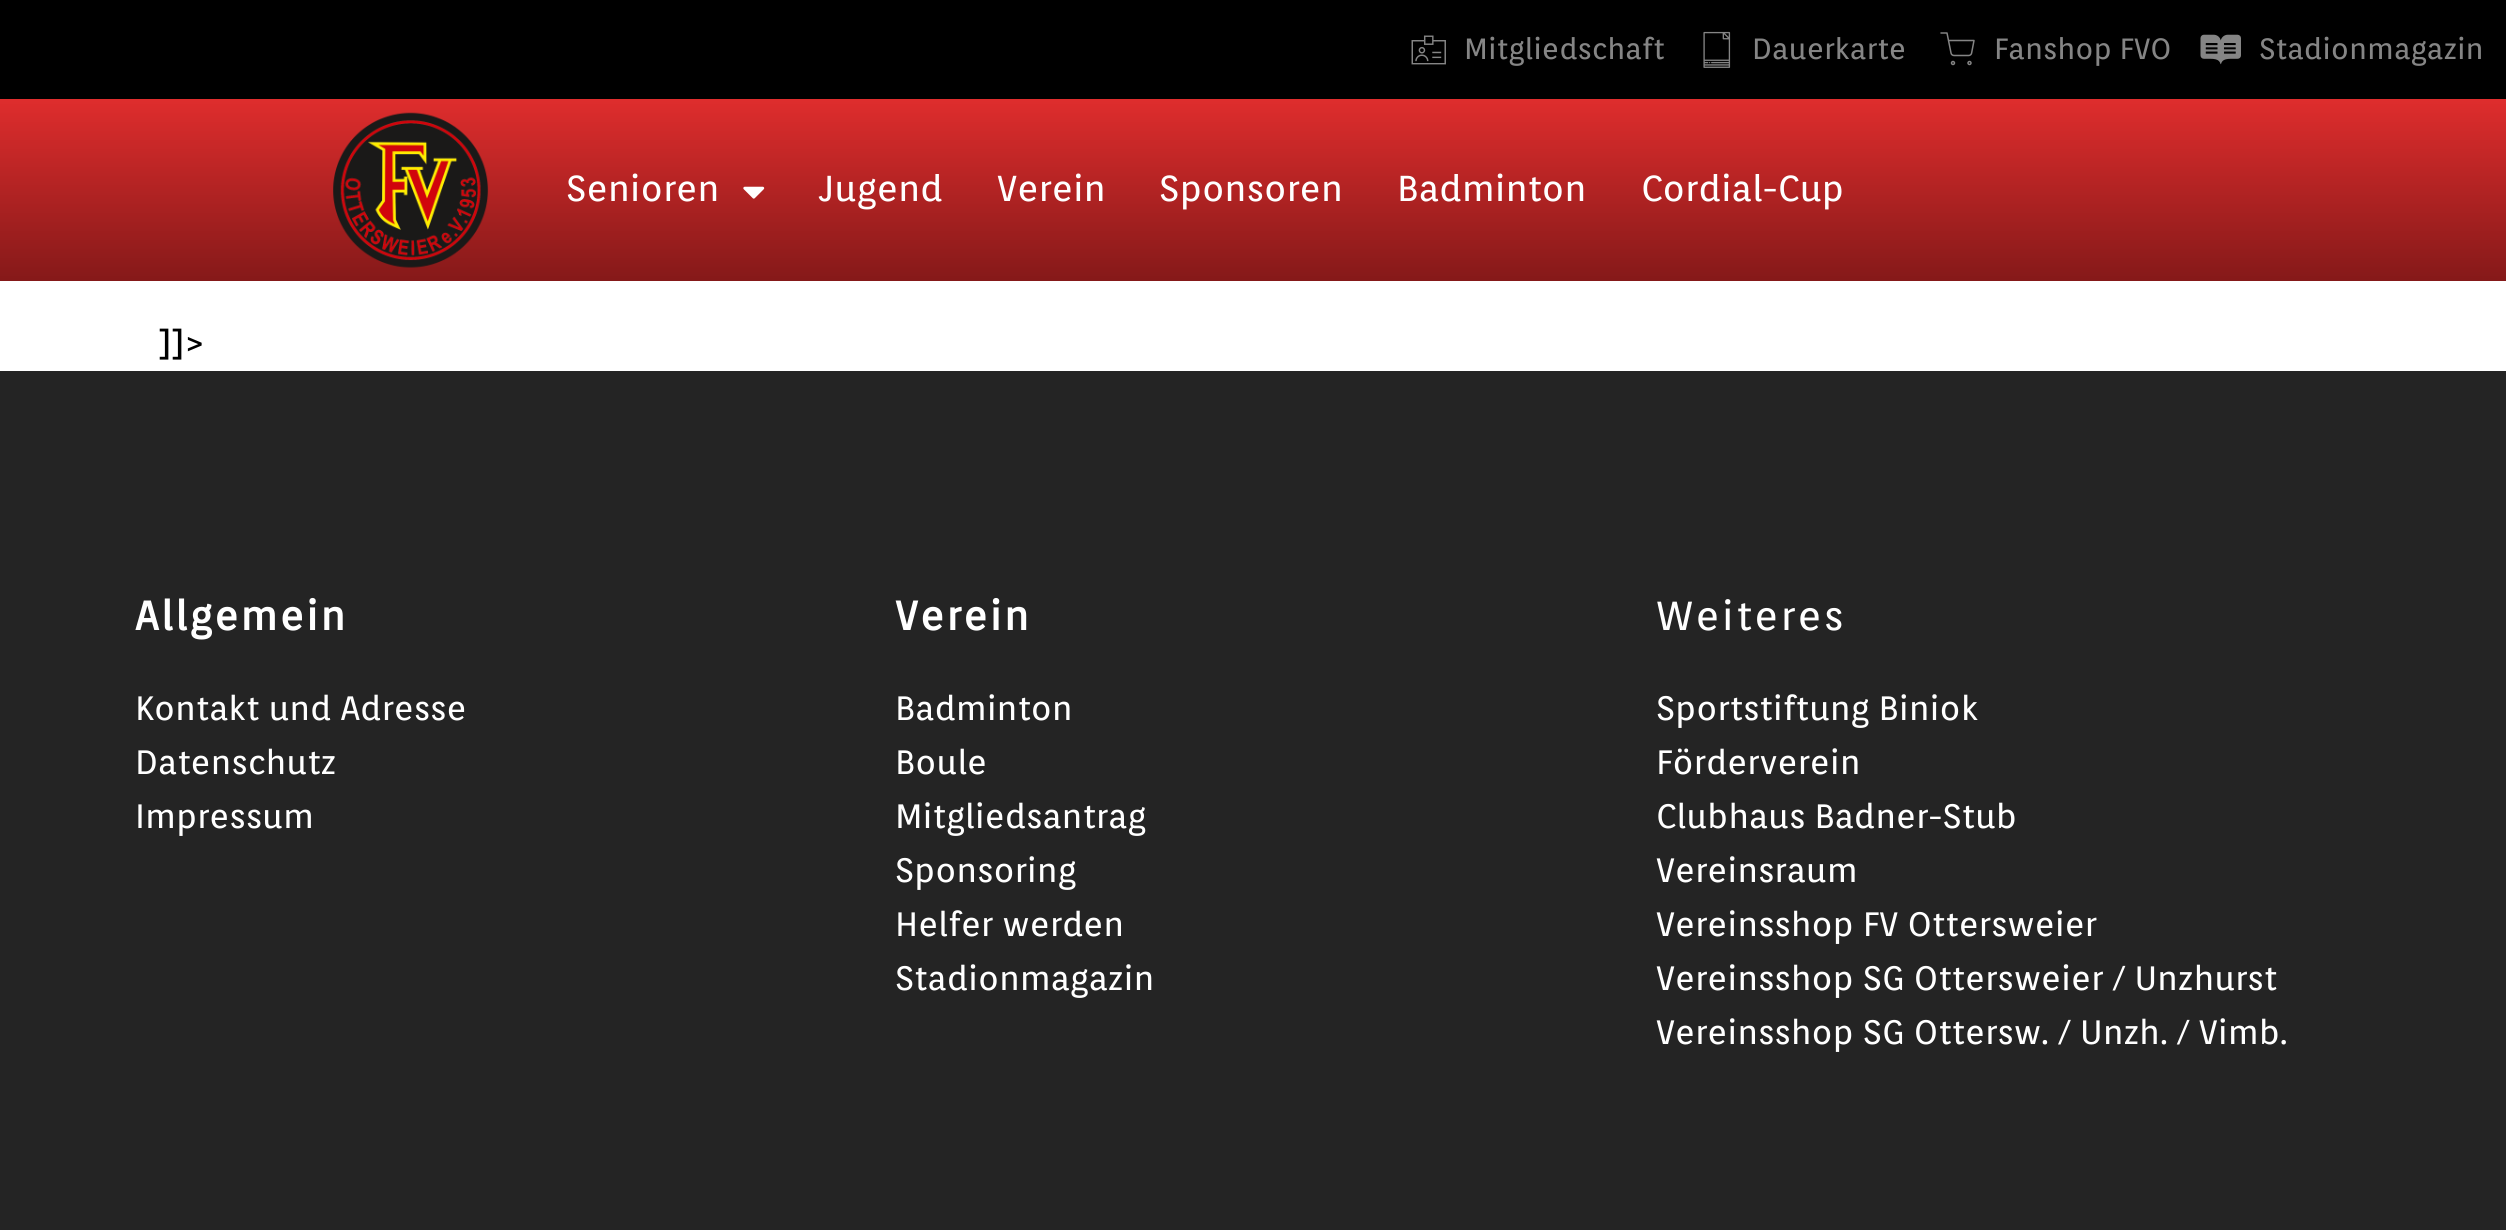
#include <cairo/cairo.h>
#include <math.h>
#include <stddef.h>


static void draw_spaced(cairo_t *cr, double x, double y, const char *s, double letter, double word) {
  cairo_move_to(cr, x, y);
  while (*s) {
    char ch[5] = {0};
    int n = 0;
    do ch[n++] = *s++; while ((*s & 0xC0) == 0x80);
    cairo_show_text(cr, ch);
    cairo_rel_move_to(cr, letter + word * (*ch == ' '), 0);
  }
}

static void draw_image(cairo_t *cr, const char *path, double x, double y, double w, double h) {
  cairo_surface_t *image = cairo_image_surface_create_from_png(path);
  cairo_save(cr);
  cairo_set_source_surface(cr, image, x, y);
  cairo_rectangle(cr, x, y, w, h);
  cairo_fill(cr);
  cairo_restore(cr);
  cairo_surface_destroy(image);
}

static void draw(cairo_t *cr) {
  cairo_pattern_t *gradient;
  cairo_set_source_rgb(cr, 1, 1, 1);
  cairo_paint(cr);
  cairo_set_source_rgb(cr, 0, 0, 0);
  cairo_rectangle(cr, 0, 0, 2506, 99);
  cairo_fill(cr);
  draw_image(cr, "images/1.png", 1411, 35, 35, 30);
  draw_image(cr, "images/2.png", 1703, 31, 28, 37);
  draw_image(cr, "images/3.png", 1940, 32, 35, 34);
  draw_image(cr, "images/4.png", 2200, 34, 41, 31);
  gradient = cairo_pattern_create_linear(1253, 99, 1253, 281);
  cairo_pattern_add_color_stop_rgba(gradient, 0, 223 / 255.0, 45 / 255.0, 45 / 255.0, 1);
  cairo_pattern_add_color_stop_rgba(gradient, 1, 133 / 255.0, 25 / 255.0, 25 / 255.0, 1);
  cairo_set_source(cr, gradient);
  cairo_pattern_destroy(gradient);
  cairo_rectangle(cr, 0, 99, 2506, 182);
  cairo_fill(cr);
  draw_image(cr, "images/5.png", 333, 112, 156, 156);
  draw_image(cr, "images/6.png", 743, 186, 22, 13);
  cairo_set_source_rgb(cr, 36 / 255.0, 36 / 255.0, 36 / 255.0);
  cairo_rectangle(cr, 0, 371, 2506, 859);
  cairo_fill(cr);
  cairo_select_font_face(cr, "Orienta", CAIRO_FONT_SLANT_NORMAL, CAIRO_FONT_WEIGHT_NORMAL);
  cairo_set_font_size(cr, 29.25);
  cairo_set_source_rgb(cr, 133 / 255.0, 133 / 255.0, 133 / 255.0);
  cairo_move_to(cr, 1464, 59);
  cairo_show_text(cr, "Mitgliedschaft");
  cairo_move_to(cr, 1752, 59);
  cairo_show_text(cr, "Dauerkarte");
  cairo_move_to(cr, 1994, 59);
  cairo_show_text(cr, "Fanshop FVO");
  cairo_move_to(cr, 2259, 59);
  cairo_show_text(cr, "Stadionmagazin");
  cairo_set_font_size(cr, 36);
  cairo_set_source_rgb(cr, 1, 1, 1);
  cairo_move_to(cr, 566, 201);
  cairo_show_text(cr, "Senioren");
  cairo_move_to(cr, 819, 201);
  cairo_show_text(cr, "Jugend");
  cairo_move_to(cr, 997, 201);
  cairo_show_text(cr, "Verein");
  cairo_move_to(cr, 1159, 201);
  cairo_show_text(cr, "Sponsoren");
  cairo_move_to(cr, 1397, 201);
  cairo_show_text(cr, "Badminton");
  cairo_move_to(cr, 1641, 201);
  cairo_show_text(cr, "Cordial-Cup");
  cairo_set_source_rgb(cr, 0, 0, 0);
  cairo_move_to(cr, 159, 356);
  cairo_show_text(cr, "]]>");
  cairo_select_font_face(cr, "Orienta", CAIRO_FONT_SLANT_NORMAL, CAIRO_FONT_WEIGHT_BOLD);
  cairo_set_font_size(cr, 40.5);
  cairo_set_source_rgb(cr, 1, 1, 1);
  draw_spaced(cr, 135, 630, "Allgemein", 2.25, 0);
  cairo_select_font_face(cr, "Orienta", CAIRO_FONT_SLANT_NORMAL, CAIRO_FONT_WEIGHT_NORMAL);
  cairo_set_font_size(cr, 33.75);
  cairo_move_to(cr, 135, 720);
  cairo_show_text(cr, "Kontakt und Adresse");
  cairo_move_to(cr, 135, 774);
  cairo_show_text(cr, "Datenschutz");
  cairo_move_to(cr, 135, 828);
  cairo_show_text(cr, "Impressum");
  cairo_select_font_face(cr, "Orienta", CAIRO_FONT_SLANT_NORMAL, CAIRO_FONT_WEIGHT_BOLD);
  cairo_set_font_size(cr, 40.5);
  draw_spaced(cr, 895, 630, "Verein", 2.25, 0);
  cairo_select_font_face(cr, "Orienta", CAIRO_FONT_SLANT_NORMAL, CAIRO_FONT_WEIGHT_NORMAL);
  cairo_set_font_size(cr, 33.75);
  cairo_move_to(cr, 895, 720);
  cairo_show_text(cr, "Badminton");
  cairo_move_to(cr, 895, 774);
  cairo_show_text(cr, "Boule");
  cairo_move_to(cr, 895, 828);
  cairo_show_text(cr, "Mitgliedsantrag");
  cairo_move_to(cr, 895, 882);
  cairo_show_text(cr, "Sponsoring");
  cairo_move_to(cr, 895, 936);
  cairo_show_text(cr, "Helfer werden");
  cairo_move_to(cr, 895, 990);
  cairo_show_text(cr, "Stadionmagazin");
  cairo_set_font_size(cr, 40.5);
  draw_spaced(cr, 1656, 630, "Weiteres", 2.25, 0);
  cairo_set_font_size(cr, 33.75);
  cairo_move_to(cr, 1656, 720);
  cairo_show_text(cr, "Sportstiftung Biniok");
  cairo_move_to(cr, 1656, 774);
  cairo_show_text(cr, "Förderverein");
  cairo_move_to(cr, 1656, 828);
  cairo_show_text(cr, "Clubhaus Badner-Stub");
  cairo_move_to(cr, 1656, 882);
  cairo_show_text(cr, "Vereinsraum");
  cairo_move_to(cr, 1656, 936);
  cairo_show_text(cr, "Vereinsshop FV Ottersweier");
  cairo_move_to(cr, 1656, 990);
  cairo_show_text(cr, "Vereinsshop SG Ottersweier / Unzhurst");
  cairo_move_to(cr, 1656, 1044);
  cairo_show_text(cr, "Vereinsshop SG Ottersw. / Unzh. / Vimb.");
}

int main(void) {
  cairo_surface_t *surface = cairo_image_surface_create(CAIRO_FORMAT_RGB24, 2506, 1230);
  cairo_t *cr = cairo_create(surface);
  cairo_font_options_t *options = cairo_font_options_create();
  cairo_font_options_set_hint_metrics(options, CAIRO_HINT_METRICS_OFF);
  cairo_font_options_set_hint_style(options, CAIRO_HINT_STYLE_NONE);
  cairo_set_font_options(cr, options);
  cairo_set_miter_limit(cr, 4);
  draw(cr);
  cairo_surface_write_to_png(surface, "out.png");
  cairo_font_options_destroy(options);
  cairo_destroy(cr);
  cairo_surface_destroy(surface);
  return 0;
}
